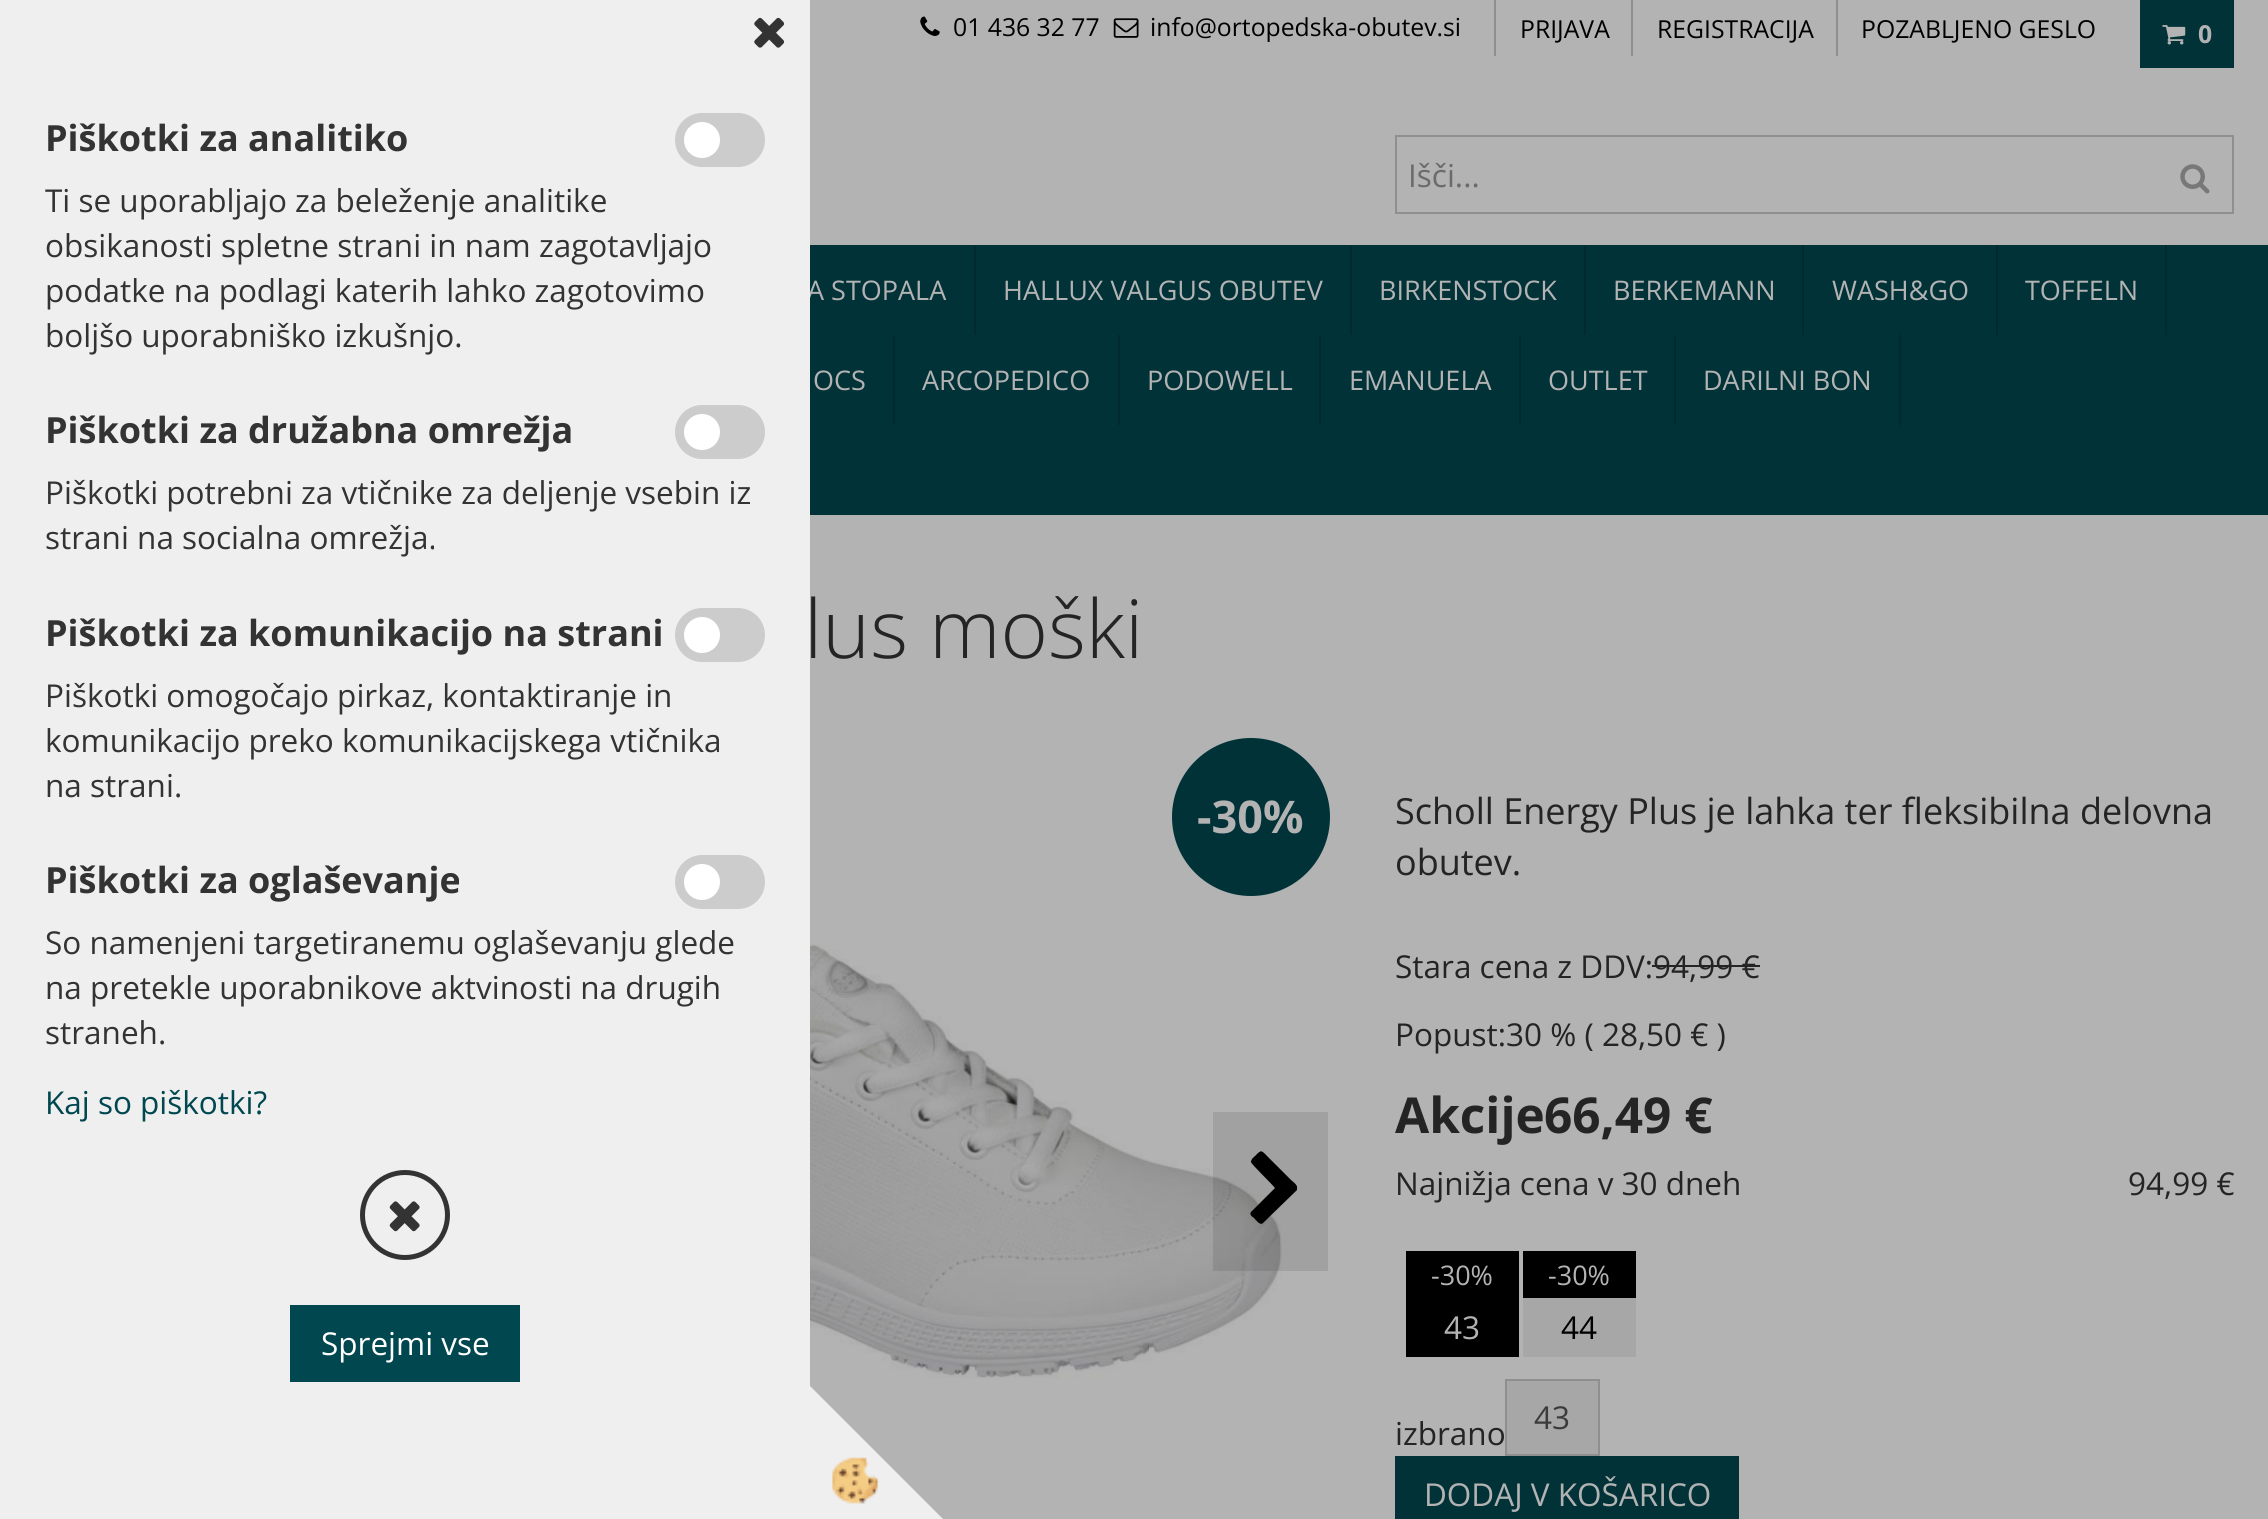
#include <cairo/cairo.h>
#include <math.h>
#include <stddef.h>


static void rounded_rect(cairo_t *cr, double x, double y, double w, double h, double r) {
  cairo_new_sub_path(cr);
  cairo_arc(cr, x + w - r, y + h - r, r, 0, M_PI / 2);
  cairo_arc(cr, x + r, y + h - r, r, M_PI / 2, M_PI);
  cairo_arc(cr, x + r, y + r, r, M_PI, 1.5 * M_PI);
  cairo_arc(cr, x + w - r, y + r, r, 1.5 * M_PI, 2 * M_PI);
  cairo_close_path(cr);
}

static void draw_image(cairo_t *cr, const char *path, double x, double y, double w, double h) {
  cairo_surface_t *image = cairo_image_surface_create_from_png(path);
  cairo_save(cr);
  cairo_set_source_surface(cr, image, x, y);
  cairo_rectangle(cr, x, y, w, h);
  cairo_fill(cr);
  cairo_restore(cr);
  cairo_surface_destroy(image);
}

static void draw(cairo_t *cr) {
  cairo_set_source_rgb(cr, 179 / 255.0, 179 / 255.0, 179 / 255.0);
  cairo_paint(cr);
  cairo_set_source_rgb(cr, 239 / 255.0, 239 / 255.0, 239 / 255.0);
  cairo_new_path(cr);
  cairo_move_to(cr, 945, 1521);
  cairo_line_to(cr, 810, 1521);
  cairo_line_to(cr, 810, 1386);
  cairo_close_path(cr);
  cairo_fill(cr);
  draw_image(cr, "images/3.png", 832, 1457, 47, 47);
  draw_image(cr, "images/4.png", 920, 16, 20, 20);
  draw_image(cr, "images/5.png", 1113, 18, 26, 20);
  cairo_set_source_rgb(cr, 143 / 255.0, 143 / 255.0, 143 / 255.0);
  cairo_rectangle(cr, 1494, 0, 2, 56);
  cairo_fill(cr);
  cairo_rectangle(cr, 1631, 0, 2, 56);
  cairo_fill(cr);
  cairo_rectangle(cr, 1836, 0, 2, 56);
  cairo_fill(cr);
  cairo_set_source_rgb(cr, 0, 50 / 255.0, 56 / 255.0);
  cairo_rectangle(cr, 2140, 0, 94, 68);
  cairo_fill(cr);
  draw_image(cr, "images/6.png", 2162, 25, 24, 20);
  cairo_set_source_rgb(cr, 143 / 255.0, 143 / 255.0, 143 / 255.0);
  cairo_rectangle(cr, 1395, 135, 839, 2);
  cairo_fill(cr);
  cairo_rectangle(cr, 2232, 135, 2, 79);
  cairo_fill(cr);
  cairo_rectangle(cr, 1395, 212, 839, 2);
  cairo_fill(cr);
  draw_image(cr, "images/7.png", 2180, 164, 30, 30);
  cairo_rectangle(cr, 1395, 135, 2, 79);
  cairo_fill(cr);
  cairo_set_source_rgb(cr, 0, 50 / 255.0, 56 / 255.0);
  cairo_rectangle(cr, 810, 245, 1458, 270);
  cairo_fill(cr);
  cairo_set_source_rgb(cr, 1 / 255.0, 42 / 255.0, 47 / 255.0);
  cairo_rectangle(cr, 974, 245, 2, 90);
  cairo_fill(cr);
  cairo_rectangle(cr, 1350, 245, 2, 90);
  cairo_fill(cr);
  cairo_rectangle(cr, 1584, 245, 2, 90);
  cairo_fill(cr);
  cairo_rectangle(cr, 1802, 245, 2, 90);
  cairo_fill(cr);
  cairo_rectangle(cr, 1996, 245, 2, 90);
  cairo_fill(cr);
  cairo_rectangle(cr, 2165, 245, 2, 90);
  cairo_fill(cr);
  cairo_rectangle(cr, 893, 335, 2, 90);
  cairo_fill(cr);
  cairo_rectangle(cr, 1118, 335, 2, 90);
  cairo_fill(cr);
  cairo_rectangle(cr, 1319, 335, 2, 90);
  cairo_fill(cr);
  cairo_rectangle(cr, 1519, 335, 2, 90);
  cairo_fill(cr);
  cairo_rectangle(cr, 1674, 335, 2, 90);
  cairo_fill(cr);
  cairo_rectangle(cr, 1899, 335, 2, 90);
  cairo_fill(cr);
  cairo_set_source_rgb(cr, 0, 50 / 255.0, 56 / 255.0);
  cairo_arc(cr, 1251, 817, 79, 0, 2 * M_PI);
  cairo_fill(cr);
  draw_image(cr, "images/8.png", 810, 944, 472, 434);
  cairo_set_source_rgba(cr, 0, 0, 0, 0.1);
  cairo_rectangle(cr, 1213, 1112, 115, 159);
  cairo_fill(cr);
  cairo_set_source_rgb(cr, 0, 0, 0);
  cairo_new_path(cr);
  cairo_move_to(cr, 1297, 1190);
  cairo_line_to(cr, 1263, 1223);
  cairo_curve_to(cr, 1260, 1226, 1256, 1220, 1254, 1218);
  cairo_curve_to(cr, 1252, 1217, 1249, 1214, 1251, 1212);
  cairo_line_to(cr, 1275, 1188);
  cairo_curve_to(cr, 1272, 1184, 1251, 1164, 1251, 1162);
  cairo_curve_to(cr, 1251, 1159, 1254, 1157, 1255, 1156);
  cairo_curve_to(cr, 1262, 1149, 1261, 1150, 1269, 1158);
  cairo_line_to(cr, 1291, 1180);
  cairo_curve_to(cr, 1292, 1181, 1298, 1185, 1297, 1188);
  cairo_close_path(cr);
  cairo_fill(cr);
  cairo_set_source_rgb(cr, 36 / 255.0, 36 / 255.0, 36 / 255.0);
  cairo_rectangle(cr, 1652, 965, 108, 2);
  cairo_fill(cr);
  cairo_set_source_rgb(cr, 0, 0, 0);
  cairo_rectangle(cr, 1406, 1251, 113, 106);
  cairo_fill(cr);
  cairo_rectangle(cr, 1523, 1251, 113, 47);
  cairo_fill(cr);
  cairo_set_source_rgb(cr, 167 / 255.0, 167 / 255.0, 167 / 255.0);
  cairo_rectangle(cr, 1523, 1298, 113, 59);
  cairo_fill(cr);
  cairo_rectangle(cr, 1506, 1380, 93, 75);
  cairo_fill_preserve(cr);
  cairo_set_source_rgb(cr, 143 / 255.0, 143 / 255.0, 143 / 255.0);
  cairo_stroke(cr);
  cairo_set_source_rgb(cr, 0, 50 / 255.0, 56 / 255.0);
  cairo_rectangle(cr, 1395, 1456, 344, 63);
  cairo_fill(cr);
  cairo_select_font_face(cr, "Open Sans", CAIRO_FONT_SLANT_NORMAL, CAIRO_FONT_WEIGHT_NORMAL);
  cairo_set_font_size(cr, 24.75);
  cairo_set_source_rgb(cr, 0, 0, 0);
  cairo_move_to(cr, 953, 36);
  cairo_show_text(cr, "01 436 32 77");
  cairo_move_to(cr, 1150, 36);
  cairo_show_text(cr, "info@ortopedska-obutev.si");
  cairo_move_to(cr, 1520, 38);
  cairo_show_text(cr, "PRIJAVA");
  cairo_move_to(cr, 1657, 38);
  cairo_show_text(cr, "REGISTRACIJA");
  cairo_move_to(cr, 1861, 38);
  cairo_show_text(cr, "POZABLJENO GESLO");
  cairo_select_font_face(cr, "Open Sans", CAIRO_FONT_SLANT_NORMAL, CAIRO_FONT_WEIGHT_BOLD);
  cairo_set_source_rgb(cr, 179 / 255.0, 179 / 255.0, 179 / 255.0);
  cairo_move_to(cr, 2198, 43);
  cairo_show_text(cr, "0");
  cairo_select_font_face(cr, "Open Sans", CAIRO_FONT_SLANT_NORMAL, CAIRO_FONT_WEIGHT_NORMAL);
  cairo_set_font_size(cr, 31.5);
  cairo_set_source_rgb(cr, 107 / 255.0, 107 / 255.0, 107 / 255.0);
  cairo_move_to(cr, 1408, 187);
  cairo_show_text(cr, "Išči...");
  cairo_set_font_size(cr, 27);
  cairo_set_source_rgb(cr, 179 / 255.0, 179 / 255.0, 179 / 255.0);
  cairo_move_to(cr, 807, 300);
  cairo_show_text(cr, "A STOPALA");
  cairo_set_source_rgb(cr, 239 / 255.0, 239 / 255.0, 239 / 255.0);
  cairo_rectangle(cr, 0, 0, 810, 1519);
  cairo_fill(cr);
  cairo_arc(cr, 405, 1215, 42.5, 0, 2 * M_PI);
  cairo_set_source_rgb(cr, 51 / 255.0, 51 / 255.0, 51 / 255.0);
  cairo_set_line_width(cr, 5);
  cairo_stroke(cr);
  draw_image(cr, "images/2.png", 389, 1201, 31, 31);
  cairo_set_source_rgb(cr, 204 / 255.0, 204 / 255.0, 204 / 255.0);
  rounded_rect(cr, 675, 855, 90, 54, 27);
  cairo_fill(cr);
  cairo_set_source_rgb(cr, 1, 1, 1);
  cairo_arc(cr, 702, 882, 18, 0, 2 * M_PI);
  cairo_fill(cr);
  cairo_set_source_rgb(cr, 204 / 255.0, 204 / 255.0, 204 / 255.0);
  rounded_rect(cr, 675, 608, 90, 54, 27);
  cairo_fill(cr);
  cairo_set_source_rgb(cr, 1, 1, 1);
  cairo_arc(cr, 702, 635, 18, 0, 2 * M_PI);
  cairo_fill(cr);
  cairo_set_source_rgb(cr, 204 / 255.0, 204 / 255.0, 204 / 255.0);
  rounded_rect(cr, 675, 405, 90, 54, 27);
  cairo_fill(cr);
  cairo_set_source_rgb(cr, 1, 1, 1);
  cairo_arc(cr, 702, 432, 18, 0, 2 * M_PI);
  cairo_fill(cr);
  cairo_set_source_rgb(cr, 204 / 255.0, 204 / 255.0, 204 / 255.0);
  rounded_rect(cr, 675, 113, 90, 54, 27);
  cairo_fill(cr);
  cairo_set_source_rgb(cr, 1, 1, 1);
  cairo_arc(cr, 702, 140, 18, 0, 2 * M_PI);
  cairo_fill(cr);
  draw_image(cr, "images/1.png", 754, 17, 31, 31);
  cairo_set_font_size(cr, 31.5);
  cairo_set_source_rgb(cr, 0, 71 / 255.0, 80 / 255.0);
  cairo_move_to(cr, 45, 1114);
  cairo_show_text(cr, "Kaj so piškotki?");
  cairo_rectangle(cr, 290, 1305, 230, 77);
  cairo_fill(cr);
  cairo_set_source_rgb(cr, 1, 1, 1);
  cairo_move_to(cr, 321, 1355);
  cairo_show_text(cr, "Sprejmi vse");
  cairo_set_source_rgb(cr, 51 / 255.0, 51 / 255.0, 51 / 255.0);
  cairo_move_to(cr, 45, 1044);
  cairo_show_text(cr, "straneh.");
  cairo_move_to(cr, 45, 999);
  cairo_show_text(cr, "na pretekle uporabnikove aktvinosti na drugih");
  cairo_move_to(cr, 45, 954);
  cairo_show_text(cr, "So namenjeni targetiranemu oglaševanju glede");
  cairo_select_font_face(cr, "Open Sans", CAIRO_FONT_SLANT_NORMAL, CAIRO_FONT_WEIGHT_BOLD);
  cairo_set_font_size(cr, 36);
  cairo_move_to(cr, 45, 893);
  cairo_show_text(cr, "Piškotki za oglaševanje");
  cairo_select_font_face(cr, "Open Sans", CAIRO_FONT_SLANT_NORMAL, CAIRO_FONT_WEIGHT_NORMAL);
  cairo_set_font_size(cr, 31.5);
  cairo_move_to(cr, 45, 797);
  cairo_show_text(cr, "na strani.");
  cairo_move_to(cr, 45, 752);
  cairo_show_text(cr, "komunikacijo preko komunikacijskega vtičnika");
  cairo_move_to(cr, 45, 707);
  cairo_show_text(cr, "Piškotki omogočajo pirkaz, kontaktiranje in");
  cairo_select_font_face(cr, "Open Sans", CAIRO_FONT_SLANT_NORMAL, CAIRO_FONT_WEIGHT_BOLD);
  cairo_set_font_size(cr, 36);
  cairo_move_to(cr, 45, 646);
  cairo_show_text(cr, "Piškotki za komunikacijo na strani");
  cairo_select_font_face(cr, "Open Sans", CAIRO_FONT_SLANT_NORMAL, CAIRO_FONT_WEIGHT_NORMAL);
  cairo_set_font_size(cr, 31.5);
  cairo_move_to(cr, 45, 549);
  cairo_show_text(cr, "strani na socialna omrežja.");
  cairo_move_to(cr, 45, 504);
  cairo_show_text(cr, "Piškotki potrebni za vtičnike za deljenje vsebin iz");
  cairo_select_font_face(cr, "Open Sans", CAIRO_FONT_SLANT_NORMAL, CAIRO_FONT_WEIGHT_BOLD);
  cairo_set_font_size(cr, 36);
  cairo_move_to(cr, 45, 443);
  cairo_show_text(cr, "Piškotki za družabna omrežja");
  cairo_select_font_face(cr, "Open Sans", CAIRO_FONT_SLANT_NORMAL, CAIRO_FONT_WEIGHT_NORMAL);
  cairo_set_font_size(cr, 31.5);
  cairo_move_to(cr, 45, 347);
  cairo_show_text(cr, "boljšo uporabniško izkušnjo.");
  cairo_move_to(cr, 45, 302);
  cairo_show_text(cr, "podatke na podlagi katerih lahko zagotovimo");
  cairo_move_to(cr, 45, 257);
  cairo_show_text(cr, "obsikanosti spletne strani in nam zagotavljajo");
  cairo_move_to(cr, 45, 212);
  cairo_show_text(cr, "Ti se uporabljajo za beleženje analitike");
  cairo_select_font_face(cr, "Open Sans", CAIRO_FONT_SLANT_NORMAL, CAIRO_FONT_WEIGHT_BOLD);
  cairo_set_font_size(cr, 36);
  cairo_move_to(cr, 45, 151);
  cairo_show_text(cr, "Piškotki za analitiko");
  cairo_select_font_face(cr, "Open Sans", CAIRO_FONT_SLANT_NORMAL, CAIRO_FONT_WEIGHT_NORMAL);
  cairo_set_font_size(cr, 27);
  cairo_set_source_rgb(cr, 179 / 255.0, 179 / 255.0, 179 / 255.0);
  cairo_move_to(cr, 1003, 300);
  cairo_show_text(cr, "HALLUX VALGUS OBUTEV");
  cairo_move_to(cr, 1379, 300);
  cairo_show_text(cr, "BIRKENSTOCK");
  cairo_move_to(cr, 1613, 300);
  cairo_show_text(cr, "BERKEMANN");
  cairo_move_to(cr, 1832, 300);
  cairo_show_text(cr, "WASH&GO");
  cairo_move_to(cr, 2025, 300);
  cairo_show_text(cr, "TOFFELN");
  cairo_move_to(cr, 813, 390);
  cairo_show_text(cr, "OCS");
  cairo_move_to(cr, 922, 390);
  cairo_show_text(cr, "ARCOPEDICO");
  cairo_move_to(cr, 1147, 390);
  cairo_show_text(cr, "PODOWELL");
  cairo_move_to(cr, 1349, 390);
  cairo_show_text(cr, "EMANUELA");
  cairo_move_to(cr, 1548, 390);
  cairo_show_text(cr, "OUTLET");
  cairo_move_to(cr, 1703, 390);
  cairo_show_text(cr, "DARILNI BON");
  cairo_select_font_face(cr, "Open Sans Light", CAIRO_FONT_SLANT_NORMAL, CAIRO_FONT_WEIGHT_NORMAL);
  cairo_set_font_size(cr, 81);
  cairo_set_source_rgb(cr, 36 / 255.0, 36 / 255.0, 36 / 255.0);
  cairo_move_to(cr, 804, 658);
  cairo_show_text(cr, "lus moški");
  cairo_select_font_face(cr, "Open Sans", CAIRO_FONT_SLANT_NORMAL, CAIRO_FONT_WEIGHT_BOLD);
  cairo_set_font_size(cr, 45);
  cairo_set_source_rgb(cr, 179 / 255.0, 179 / 255.0, 179 / 255.0);
  cairo_move_to(cr, 1197, 833);
  cairo_show_text(cr, "-30%");
  cairo_select_font_face(cr, "Open Sans", CAIRO_FONT_SLANT_NORMAL, CAIRO_FONT_WEIGHT_NORMAL);
  cairo_set_font_size(cr, 36);
  cairo_set_source_rgb(cr, 36 / 255.0, 36 / 255.0, 36 / 255.0);
  cairo_move_to(cr, 1395, 824);
  cairo_show_text(cr, "Scholl Energy Plus je lahka ter fleksibilna delovna");
  cairo_move_to(cr, 1395, 875);
  cairo_show_text(cr, "obutev.");
  cairo_set_font_size(cr, 31.5);
  cairo_move_to(cr, 1395, 978);
  cairo_show_text(cr, "Stara cena z DDV:");
  cairo_move_to(cr, 1653, 978);
  cairo_show_text(cr, "94,99 €");
  cairo_move_to(cr, 1395, 1046);
  cairo_show_text(cr, "Popust:");
  cairo_move_to(cr, 1506, 1046);
  cairo_show_text(cr, "30 % ( 28,50 € )");
  cairo_select_font_face(cr, "Open Sans", CAIRO_FONT_SLANT_NORMAL, CAIRO_FONT_WEIGHT_BOLD);
  cairo_set_font_size(cr, 49.5);
  cairo_move_to(cr, 1395, 1133);
  cairo_show_text(cr, "Akcije");
  cairo_move_to(cr, 1544, 1133);
  cairo_show_text(cr, "66,49 €");
  cairo_select_font_face(cr, "Open Sans", CAIRO_FONT_SLANT_NORMAL, CAIRO_FONT_WEIGHT_NORMAL);
  cairo_set_font_size(cr, 31.5);
  cairo_move_to(cr, 1395, 1195);
  cairo_show_text(cr, "Najnižja cena v 30 dneh");
  cairo_move_to(cr, 2128, 1195);
  cairo_show_text(cr, "94,99 €");
  cairo_set_font_size(cr, 27);
  cairo_set_source_rgb(cr, 179 / 255.0, 179 / 255.0, 179 / 255.0);
  cairo_move_to(cr, 1431, 1285);
  cairo_show_text(cr, "-30%");
  cairo_set_font_size(cr, 31.5);
  cairo_move_to(cr, 1444, 1339);
  cairo_show_text(cr, "43");
  cairo_set_font_size(cr, 27);
  cairo_move_to(cr, 1548, 1285);
  cairo_show_text(cr, "-30%");
  cairo_set_font_size(cr, 31.5);
  cairo_set_source_rgb(cr, 0, 0, 0);
  cairo_move_to(cr, 1561, 1339);
  cairo_show_text(cr, "44");
  cairo_set_source_rgb(cr, 59 / 255.0, 59 / 255.0, 59 / 255.0);
  cairo_move_to(cr, 1534, 1429);
  cairo_show_text(cr, "43");
  cairo_set_source_rgb(cr, 36 / 255.0, 36 / 255.0, 36 / 255.0);
  cairo_move_to(cr, 1395, 1445);
  cairo_show_text(cr, "izbrano");
  cairo_set_source_rgb(cr, 179 / 255.0, 179 / 255.0, 179 / 255.0);
  cairo_move_to(cr, 1424, 1506);
  cairo_show_text(cr, "DODAJ V KOŠARICO");
}

int main(void) {
  cairo_surface_t *surface = cairo_image_surface_create(CAIRO_FORMAT_RGB24, 2268, 1519);
  cairo_t *cr = cairo_create(surface);
  cairo_font_options_t *options = cairo_font_options_create();
  cairo_font_options_set_hint_metrics(options, CAIRO_HINT_METRICS_OFF);
  cairo_font_options_set_hint_style(options, CAIRO_HINT_STYLE_NONE);
  cairo_set_font_options(cr, options);
  cairo_set_miter_limit(cr, 4);
  draw(cr);
  cairo_surface_write_to_png(surface, "out.png");
  cairo_font_options_destroy(options);
  cairo_destroy(cr);
  cairo_surface_destroy(surface);
  return 0;
}
